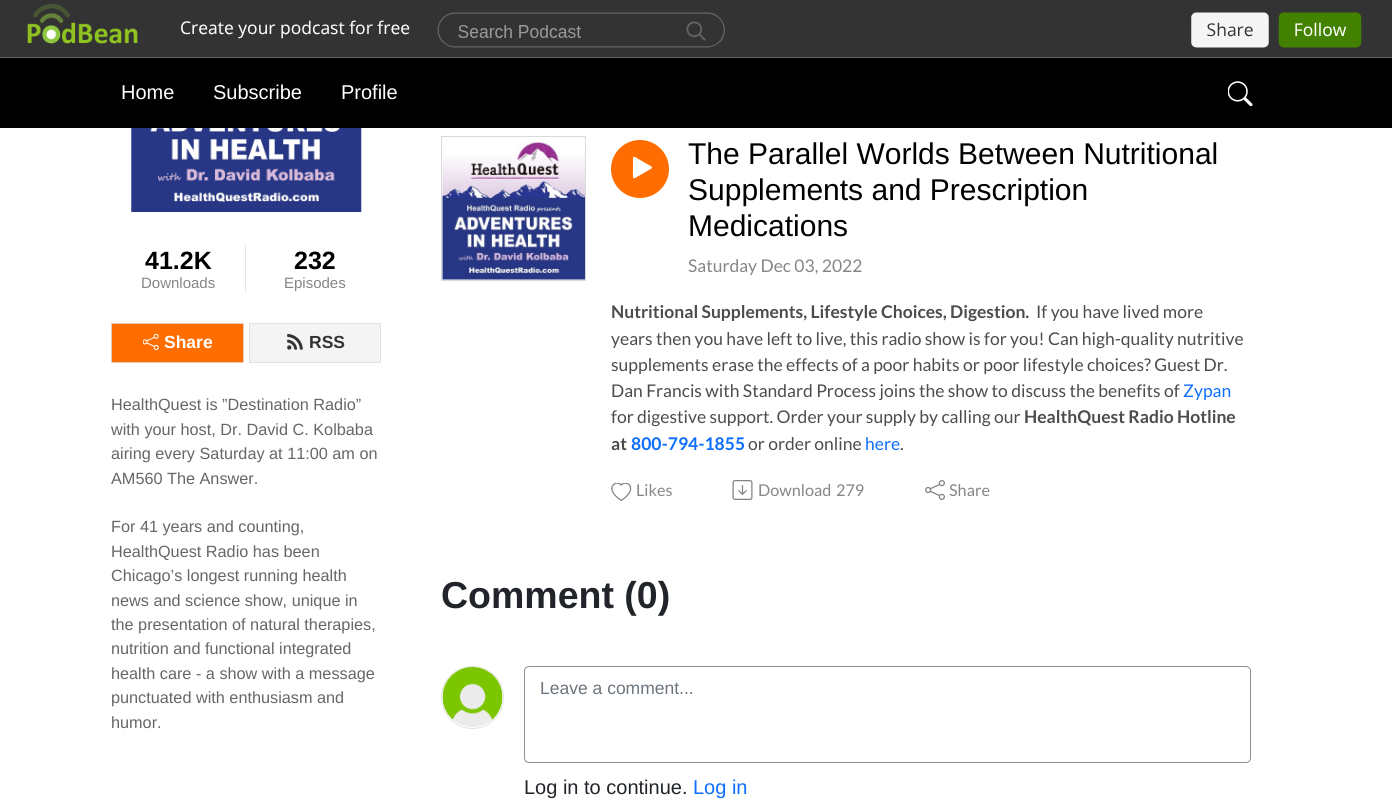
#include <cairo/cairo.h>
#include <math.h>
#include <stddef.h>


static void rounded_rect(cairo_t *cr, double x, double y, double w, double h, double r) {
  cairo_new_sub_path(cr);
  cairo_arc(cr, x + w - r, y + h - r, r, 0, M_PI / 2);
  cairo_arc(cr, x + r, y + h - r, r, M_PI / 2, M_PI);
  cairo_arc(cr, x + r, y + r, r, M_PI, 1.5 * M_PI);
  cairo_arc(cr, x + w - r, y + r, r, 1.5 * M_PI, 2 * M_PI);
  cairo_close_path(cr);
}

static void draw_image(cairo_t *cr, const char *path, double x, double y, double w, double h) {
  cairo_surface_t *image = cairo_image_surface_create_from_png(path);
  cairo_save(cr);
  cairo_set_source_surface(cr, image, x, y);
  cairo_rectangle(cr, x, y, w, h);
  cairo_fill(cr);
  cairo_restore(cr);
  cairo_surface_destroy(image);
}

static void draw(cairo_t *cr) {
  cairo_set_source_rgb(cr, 1, 1, 1);
  cairo_paint(cr);
  cairo_set_source_rgb(cr, 51 / 255.0, 51 / 255.0, 51 / 255.0);
  cairo_rectangle(cr, 0, 0, 1392, 4);
  cairo_fill(cr);
  draw_image(cr, "images/1.png", 0, 4, 1392, 54);
  cairo_set_source_rgb(cr, 0, 0, 0);
  cairo_rectangle(cr, 0, 58, 1392, 70);
  cairo_fill(cr);
  draw_image(cr, "images/2.png", 1228, 81, 25, 25);
  draw_image(cr, "images/3.png", 131, 128, 231, 84);
  cairo_set_source_rgb(cr, 230 / 255.0, 230 / 255.0, 230 / 255.0);
  cairo_rectangle(cr, 245, 245, 1, 48);
  cairo_fill(cr);
  cairo_set_source_rgb(cr, 1, 109 / 255.0, 0);
  cairo_rectangle(cr, 111.5, 323.5, 132, 39);
  cairo_fill_preserve(cr);
  cairo_set_source_rgb(cr, 232 / 255.0, 203 / 255.0, 181 / 255.0);
  cairo_set_line_width(cr, 1);
  cairo_stroke(cr);
  draw_image(cr, "images/4.png", 143, 334, 16, 16);
  cairo_set_source_rgb(cr, 244 / 255.0, 244 / 255.0, 244 / 255.0);
  cairo_rectangle(cr, 249.5, 323.5, 131, 39);
  cairo_fill_preserve(cr);
  cairo_set_source_rgb(cr, 226 / 255.0, 226 / 255.0, 226 / 255.0);
  cairo_stroke(cr);
  draw_image(cr, "images/5.png", 287, 334, 16, 16);
  cairo_rectangle(cr, 441.5, 136.5, 144, 144);
  cairo_set_source_rgb(cr, 218 / 255.0, 218 / 255.0, 218 / 255.0);
  cairo_stroke(cr);
  draw_image(cr, "images/6.png", 442, 138, 143, 142);
  cairo_set_source_rgb(cr, 1, 109 / 255.0, 0);
  cairo_arc(cr, 640, 169, 29, 0, 2 * M_PI);
  cairo_fill(cr);
  draw_image(cr, "images/7.png", 632, 156, 20, 23);
  draw_image(cr, "images/8.png", 611, 483, 21, 19);
  draw_image(cr, "images/9.png", 732, 480, 21, 20);
  draw_image(cr, "images/10.png", 925, 480, 20, 20);
  cairo_arc(cr, 472.5, 697.5, 31, 0, 2 * M_PI);
  cairo_set_source_rgb(cr, 227 / 255.0, 227 / 255.0, 227 / 255.0);
  cairo_stroke(cr);
  draw_image(cr, "images/11.png", 442, 667, 61, 60);
  rounded_rect(cr, 524.5, 666.5, 726, 96, 4.5);
  cairo_set_source_rgb(cr, 144 / 255.0, 144 / 255.0, 144 / 255.0);
  cairo_stroke(cr);
  cairo_select_font_face(cr, "Liberation Sans", CAIRO_FONT_SLANT_NORMAL, CAIRO_FONT_WEIGHT_NORMAL);
  cairo_set_font_size(cr, 20);
  cairo_set_source_rgb(cr, 1, 1, 1);
  cairo_move_to(cr, 121, 99);
  cairo_show_text(cr, "Home");
  cairo_move_to(cr, 213, 99);
  cairo_show_text(cr, "Subscribe");
  cairo_move_to(cr, 341, 99);
  cairo_show_text(cr, "Profile");
  cairo_select_font_face(cr, "Liberation Sans", CAIRO_FONT_SLANT_NORMAL, CAIRO_FONT_WEIGHT_BOLD);
  cairo_set_font_size(cr, 25);
  cairo_set_source_rgb(cr, 0, 0, 0);
  cairo_move_to(cr, 145, 269);
  cairo_show_text(cr, "41.2K");
  cairo_select_font_face(cr, "Liberation Sans", CAIRO_FONT_SLANT_NORMAL, CAIRO_FONT_WEIGHT_NORMAL);
  cairo_set_font_size(cr, 15);
  cairo_set_source_rgb(cr, 134 / 255.0, 134 / 255.0, 134 / 255.0);
  cairo_move_to(cr, 141, 288);
  cairo_show_text(cr, "Downloads");
  cairo_select_font_face(cr, "Liberation Sans", CAIRO_FONT_SLANT_NORMAL, CAIRO_FONT_WEIGHT_BOLD);
  cairo_set_font_size(cr, 25);
  cairo_set_source_rgb(cr, 0, 0, 0);
  cairo_move_to(cr, 294, 269);
  cairo_show_text(cr, "232");
  cairo_select_font_face(cr, "Liberation Sans", CAIRO_FONT_SLANT_NORMAL, CAIRO_FONT_WEIGHT_NORMAL);
  cairo_set_font_size(cr, 15);
  cairo_set_source_rgb(cr, 134 / 255.0, 134 / 255.0, 134 / 255.0);
  cairo_move_to(cr, 284, 288);
  cairo_show_text(cr, "Episodes");
  cairo_select_font_face(cr, "Liberation Sans", CAIRO_FONT_SLANT_NORMAL, CAIRO_FONT_WEIGHT_BOLD);
  cairo_set_font_size(cr, 17.5);
  cairo_set_source_rgb(cr, 1, 1, 1);
  cairo_move_to(cr, 164, 348);
  cairo_show_text(cr, "Share");
  cairo_set_source_rgb(cr, 51 / 255.0, 51 / 255.0, 51 / 255.0);
  cairo_move_to(cr, 309, 348);
  cairo_show_text(cr, "RSS");
  cairo_select_font_face(cr, "Liberation Sans", CAIRO_FONT_SLANT_NORMAL, CAIRO_FONT_WEIGHT_NORMAL);
  cairo_set_font_size(cr, 16.25);
  cairo_set_source_rgb(cr, 100 / 255.0, 102 / 255.0, 105 / 255.0);
  cairo_move_to(cr, 111, 410);
  cairo_show_text(cr, "HealthQuest is ”Destination Radio”");
  cairo_move_to(cr, 111, 435);
  cairo_show_text(cr, "with your host, Dr. David C. Kolbaba");
  cairo_move_to(cr, 111, 459);
  cairo_show_text(cr, "airing every Saturday at 11:00 am on");
  cairo_move_to(cr, 111, 484);
  cairo_show_text(cr, "AM560 The Answer.");
  cairo_move_to(cr, 111, 532);
  cairo_show_text(cr, "For 41 years and counting,");
  cairo_move_to(cr, 111, 557);
  cairo_show_text(cr, "HealthQuest Radio has been");
  cairo_move_to(cr, 111, 581);
  cairo_show_text(cr, "Chicago’s longest running health");
  cairo_move_to(cr, 111, 606);
  cairo_show_text(cr, "news and science show, unique in");
  cairo_move_to(cr, 111, 630);
  cairo_show_text(cr, "the presentation of natural therapies,");
  cairo_move_to(cr, 111, 654);
  cairo_show_text(cr, "nutrition and functional integrated");
  cairo_move_to(cr, 111, 679);
  cairo_show_text(cr, "health care - a show with a message");
  cairo_move_to(cr, 111, 703);
  cairo_show_text(cr, "punctuated with enthusiasm and");
  cairo_move_to(cr, 111, 728);
  cairo_show_text(cr, "humor.");
  cairo_set_font_size(cr, 30);
  cairo_set_source_rgb(cr, 0, 0, 0);
  cairo_move_to(cr, 688, 164);
  cairo_show_text(cr, "The Parallel Worlds Between Nutritional");
  cairo_move_to(cr, 688, 200);
  cairo_show_text(cr, "Supplements and Prescription");
  cairo_move_to(cr, 688, 236);
  cairo_show_text(cr, "Medications");
  cairo_select_font_face(cr, "Lato", CAIRO_FONT_SLANT_NORMAL, CAIRO_FONT_WEIGHT_NORMAL);
  cairo_set_font_size(cr, 17.5);
  cairo_set_source_rgb(cr, 134 / 255.0, 134 / 255.0, 134 / 255.0);
  cairo_move_to(cr, 688, 272);
  cairo_show_text(cr, "Saturday Dec 03, 2022");
  cairo_select_font_face(cr, "Lato", CAIRO_FONT_SLANT_NORMAL, CAIRO_FONT_WEIGHT_BOLD);
  cairo_set_source_rgb(cr, 76 / 255.0, 76 / 255.0, 76 / 255.0);
  cairo_move_to(cr, 611, 318);
  cairo_show_text(cr, "Nutritional Supplements, Lifestyle Choices, Digestion.");
  cairo_select_font_face(cr, "Lato", CAIRO_FONT_SLANT_NORMAL, CAIRO_FONT_WEIGHT_NORMAL);
  cairo_move_to(cr, 1036, 318);
  cairo_show_text(cr, "If you have lived more");
  cairo_move_to(cr, 611, 345);
  cairo_show_text(cr, "years then you have left to live, this radio show is for you! Can high-quality nutritive");
  cairo_move_to(cr, 611, 371);
  cairo_show_text(cr, "supplements erase the effects of a poor habits or poor lifestyle choices? Guest Dr.");
  cairo_move_to(cr, 611, 397);
  cairo_show_text(cr, "Dan Francis with Standard Process joins the show to discuss the benefits of");
  cairo_set_source_rgb(cr, 13 / 255.0, 110 / 255.0, 253 / 255.0);
  cairo_move_to(cr, 1183, 397);
  cairo_show_text(cr, "Zypan");
  cairo_set_source_rgb(cr, 76 / 255.0, 76 / 255.0, 76 / 255.0);
  cairo_move_to(cr, 611, 423);
  cairo_show_text(cr, "for digestive support. Order your supply by calling our");
  cairo_select_font_face(cr, "Lato", CAIRO_FONT_SLANT_NORMAL, CAIRO_FONT_WEIGHT_BOLD);
  cairo_move_to(cr, 1024, 423);
  cairo_show_text(cr, "HealthQuest Radio Hotline");
  cairo_move_to(cr, 611, 450);
  cairo_show_text(cr, "at");
  cairo_set_source_rgb(cr, 13 / 255.0, 110 / 255.0, 253 / 255.0);
  cairo_move_to(cr, 631, 450);
  cairo_show_text(cr, "800-794-1855");
  cairo_select_font_face(cr, "Lato", CAIRO_FONT_SLANT_NORMAL, CAIRO_FONT_WEIGHT_NORMAL);
  cairo_set_source_rgb(cr, 76 / 255.0, 76 / 255.0, 76 / 255.0);
  cairo_move_to(cr, 748, 450);
  cairo_show_text(cr, "or order online");
  cairo_set_source_rgb(cr, 13 / 255.0, 110 / 255.0, 253 / 255.0);
  cairo_move_to(cr, 865, 450);
  cairo_show_text(cr, "here");
  cairo_set_source_rgb(cr, 76 / 255.0, 76 / 255.0, 76 / 255.0);
  cairo_move_to(cr, 900, 450);
  cairo_show_text(cr, ".");
  cairo_set_font_size(cr, 16.25);
  cairo_set_source_rgb(cr, 134 / 255.0, 134 / 255.0, 134 / 255.0);
  cairo_move_to(cr, 636, 496);
  cairo_show_text(cr, "Likes");
  cairo_move_to(cr, 758, 496);
  cairo_show_text(cr, "Download");
  cairo_move_to(cr, 836, 496);
  cairo_show_text(cr, "279");
  cairo_move_to(cr, 949, 496);
  cairo_show_text(cr, "Share");
  cairo_select_font_face(cr, "Liberation Sans", CAIRO_FONT_SLANT_NORMAL, CAIRO_FONT_WEIGHT_BOLD);
  cairo_set_font_size(cr, 37.5);
  cairo_set_source_rgb(cr, 33 / 255.0, 37 / 255.0, 41 / 255.0);
  cairo_move_to(cr, 441, 608);
  cairo_show_text(cr, "Comment (0)");
  cairo_select_font_face(cr, "Liberation Sans", CAIRO_FONT_SLANT_NORMAL, CAIRO_FONT_WEIGHT_NORMAL);
  cairo_set_font_size(cr, 17.5);
  cairo_set_source_rgb(cr, 108 / 255.0, 117 / 255.0, 125 / 255.0);
  cairo_move_to(cr, 540, 694);
  cairo_show_text(cr, "Leave a comment...");
  cairo_set_font_size(cr, 20);
  cairo_set_source_rgb(cr, 33 / 255.0, 37 / 255.0, 41 / 255.0);
  cairo_move_to(cr, 524, 794);
  cairo_show_text(cr, "Log in to continue.");
  cairo_set_source_rgb(cr, 13 / 255.0, 110 / 255.0, 253 / 255.0);
  cairo_move_to(cr, 693, 794);
  cairo_show_text(cr, "Log in");
}

int main(void) {
  cairo_surface_t *surface = cairo_image_surface_create(CAIRO_FORMAT_RGB24, 1392, 803);
  cairo_t *cr = cairo_create(surface);
  cairo_font_options_t *options = cairo_font_options_create();
  cairo_font_options_set_hint_metrics(options, CAIRO_HINT_METRICS_OFF);
  cairo_font_options_set_hint_style(options, CAIRO_HINT_STYLE_NONE);
  cairo_set_font_options(cr, options);
  cairo_set_miter_limit(cr, 4);
  draw(cr);
  cairo_surface_write_to_png(surface, "out.png");
  cairo_font_options_destroy(options);
  cairo_destroy(cr);
  cairo_surface_destroy(surface);
  return 0;
}
